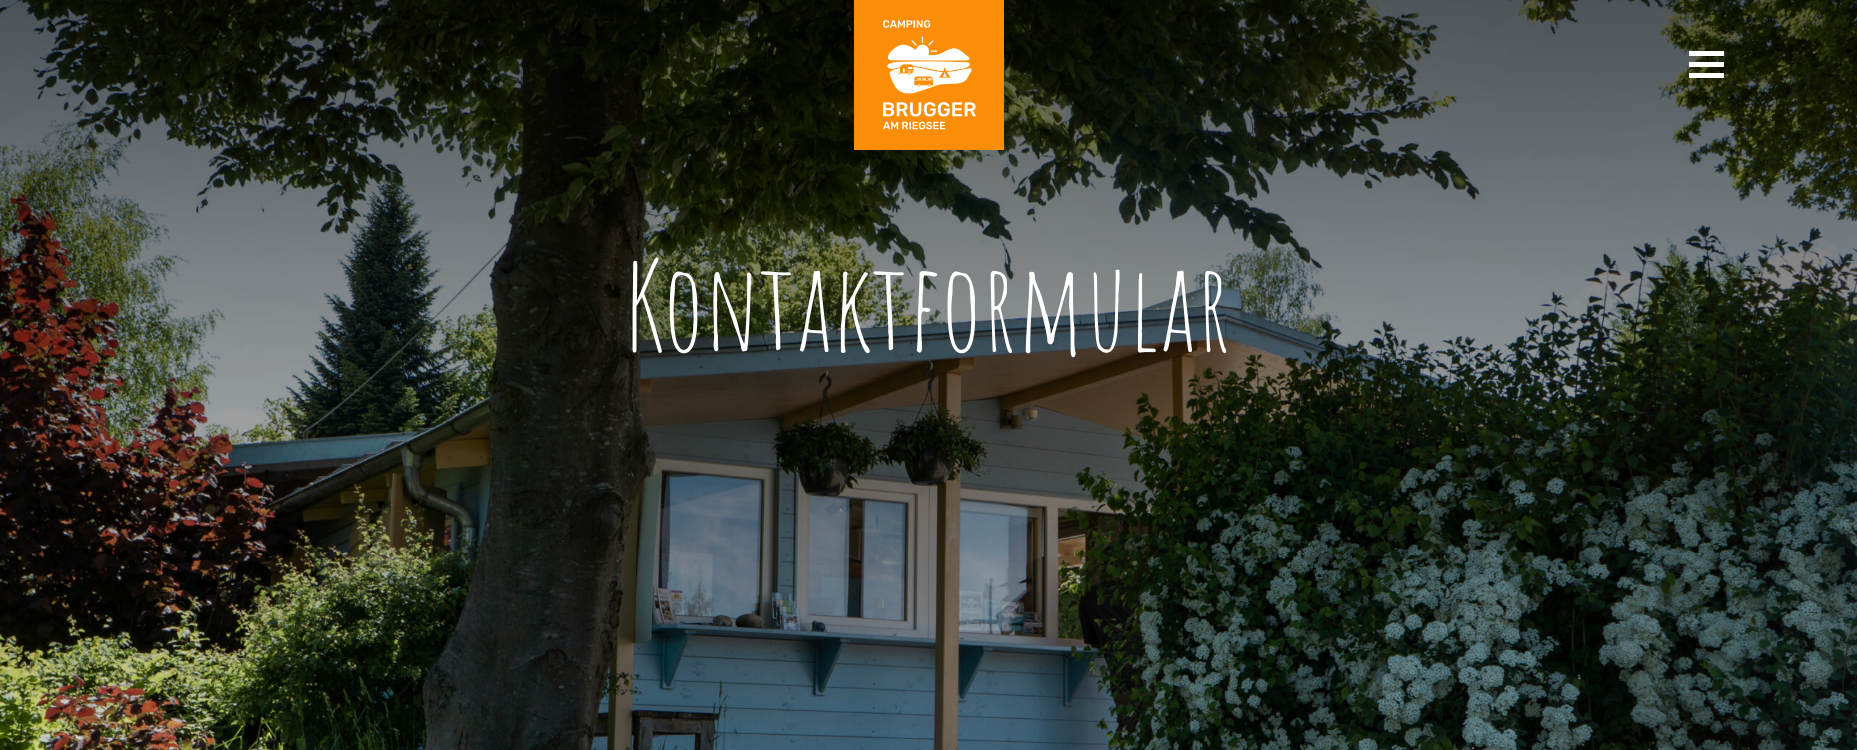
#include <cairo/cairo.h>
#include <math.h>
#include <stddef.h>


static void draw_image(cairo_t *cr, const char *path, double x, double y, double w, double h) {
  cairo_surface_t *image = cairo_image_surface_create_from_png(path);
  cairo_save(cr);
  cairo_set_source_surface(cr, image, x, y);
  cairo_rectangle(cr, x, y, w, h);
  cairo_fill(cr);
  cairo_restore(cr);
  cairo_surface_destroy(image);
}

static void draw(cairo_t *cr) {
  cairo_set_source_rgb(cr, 1, 1, 1);
  cairo_paint(cr);
  draw_image(cr, "images/2.png", 0, 0, 1857, 750);
  draw_image(cr, "images/1.png", 854, 0, 150, 150);
  cairo_set_source_rgb(cr, 1, 1, 1);
  cairo_rectangle(cr, 1689, 51, 35, 5);
  cairo_fill(cr);
  cairo_rectangle(cr, 1689, 62, 35, 5);
  cairo_fill(cr);
  cairo_rectangle(cr, 1689, 73, 35, 5);
  cairo_fill(cr);
  cairo_select_font_face(cr, "Amatic SC", CAIRO_FONT_SLANT_NORMAL, CAIRO_FONT_WEIGHT_NORMAL);
  cairo_set_font_size(cr, 120);
  cairo_move_to(cr, 625, 351);
  cairo_show_text(cr, "Kontaktformular");
}

int main(void) {
  cairo_surface_t *surface = cairo_image_surface_create(CAIRO_FORMAT_RGB24, 1857, 750);
  cairo_t *cr = cairo_create(surface);
  cairo_font_options_t *options = cairo_font_options_create();
  cairo_font_options_set_hint_metrics(options, CAIRO_HINT_METRICS_OFF);
  cairo_font_options_set_hint_style(options, CAIRO_HINT_STYLE_NONE);
  cairo_set_font_options(cr, options);
  cairo_set_miter_limit(cr, 4);
  draw(cr);
  cairo_surface_write_to_png(surface, "out.png");
  cairo_font_options_destroy(options);
  cairo_destroy(cr);
  cairo_surface_destroy(surface);
  return 0;
}
